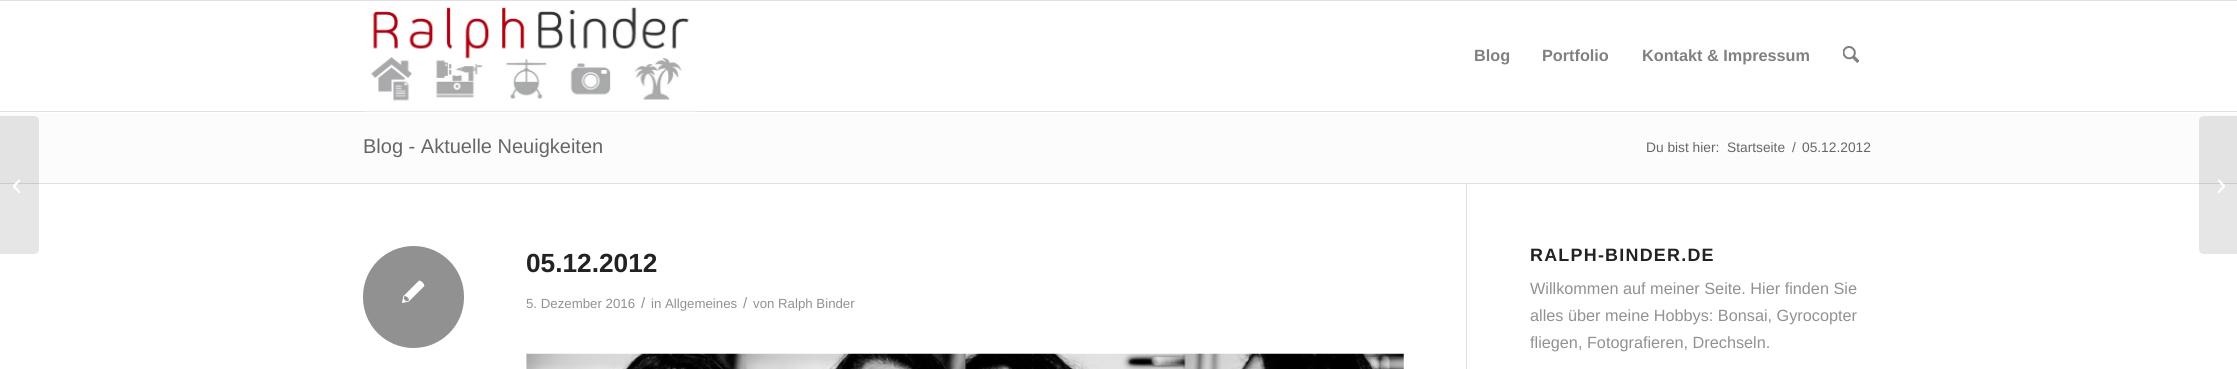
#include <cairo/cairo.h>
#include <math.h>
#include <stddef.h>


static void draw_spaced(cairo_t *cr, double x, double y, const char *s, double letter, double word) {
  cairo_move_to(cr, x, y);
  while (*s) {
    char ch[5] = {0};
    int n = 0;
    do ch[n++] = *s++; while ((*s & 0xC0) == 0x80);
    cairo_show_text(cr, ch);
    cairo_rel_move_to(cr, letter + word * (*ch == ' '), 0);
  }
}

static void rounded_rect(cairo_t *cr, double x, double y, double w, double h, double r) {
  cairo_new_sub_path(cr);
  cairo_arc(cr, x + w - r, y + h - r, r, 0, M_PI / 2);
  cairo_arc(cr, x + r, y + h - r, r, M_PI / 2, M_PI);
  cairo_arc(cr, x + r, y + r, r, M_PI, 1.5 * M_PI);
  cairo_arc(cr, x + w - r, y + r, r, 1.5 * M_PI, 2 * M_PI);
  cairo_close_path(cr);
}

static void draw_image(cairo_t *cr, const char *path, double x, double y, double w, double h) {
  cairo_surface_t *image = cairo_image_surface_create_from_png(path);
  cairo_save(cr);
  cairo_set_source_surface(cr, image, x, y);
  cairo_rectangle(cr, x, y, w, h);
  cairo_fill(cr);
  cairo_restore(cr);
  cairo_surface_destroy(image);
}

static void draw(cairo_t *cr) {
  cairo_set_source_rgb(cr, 1, 1, 1);
  cairo_paint(cr);
  cairo_set_source_rgb(cr, 225 / 255.0, 225 / 255.0, 225 / 255.0);
  cairo_rectangle(cr, 0, 0, 2237, 1);
  cairo_fill(cr);
  cairo_rectangle(cr, 0, 111, 2237, 1);
  cairo_fill(cr);
  draw_image(cr, "images/1.png", 363, 5, 334, 107);
  draw_image(cr, "images/2.png", 1843, 46, 16, 17);
  cairo_set_source_rgb(cr, 252 / 255.0, 252 / 255.0, 252 / 255.0);
  cairo_rectangle(cr, 0, 113, 2237, 70);
  cairo_fill(cr);
  cairo_set_source_rgb(cr, 225 / 255.0, 225 / 255.0, 225 / 255.0);
  cairo_rectangle(cr, 0, 183, 2237, 1);
  cairo_fill(cr);
  cairo_set_source_rgba(cr, 0, 0, 0, 0.1);
  cairo_new_path(cr);
  cairo_move_to(cr, 0, 116);
  cairo_line_to(cr, 34, 116);
  cairo_curve_to(cr, 37, 116, 39, 118, 39, 121);
  cairo_line_to(cr, 39, 249);
  cairo_curve_to(cr, 39, 252, 37, 254, 34, 254);
  cairo_line_to(cr, 0, 254);
  cairo_close_path(cr);
  cairo_fill(cr);
  draw_image(cr, "images/3.png", 13, 179, 7, 14);
  cairo_set_source_rgb(cr, 225 / 255.0, 225 / 255.0, 225 / 255.0);
  cairo_rectangle(cr, 1466, 184, 1, 185);
  cairo_fill(cr);
  cairo_set_source_rgb(cr, 145 / 255.0, 145 / 255.0, 145 / 255.0);
  rounded_rect(cr, 363, 246, 101, 102, 50.5);
  cairo_fill(cr);
  draw_image(cr, "images/4.png", 402, 280, 23, 23);
  draw_image(cr, "images/5.png", 526, 353, 878, 16);
  cairo_set_source_rgba(cr, 0, 0, 0, 0.1);
  cairo_new_path(cr);
  cairo_move_to(cr, 2204, 116);
  cairo_line_to(cr, 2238, 116);
  cairo_line_to(cr, 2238, 254);
  cairo_line_to(cr, 2204, 254);
  cairo_curve_to(cr, 2201, 254, 2199, 252, 2199, 249);
  cairo_line_to(cr, 2199, 121);
  cairo_curve_to(cr, 2199, 118, 2201, 116, 2204, 116);
  cairo_close_path(cr);
  cairo_fill(cr);
  draw_image(cr, "images/6.png", 2218, 179, 7, 14);
  cairo_select_font_face(cr, "Liberation Sans", CAIRO_FONT_SLANT_NORMAL, CAIRO_FONT_WEIGHT_BOLD);
  cairo_set_font_size(cr, 16.25);
  cairo_set_source_rgb(cr, 128 / 255.0, 128 / 255.0, 128 / 255.0);
  cairo_move_to(cr, 1474, 61);
  cairo_show_text(cr, "Blog");
  cairo_move_to(cr, 1542, 61);
  cairo_show_text(cr, "Portfolio");
  cairo_move_to(cr, 1642, 61);
  cairo_show_text(cr, "Kontakt & Impressum");
  cairo_select_font_face(cr, "Liberation Sans", CAIRO_FONT_SLANT_NORMAL, CAIRO_FONT_WEIGHT_NORMAL);
  cairo_set_font_size(cr, 20);
  cairo_set_source_rgb(cr, 102 / 255.0, 102 / 255.0, 102 / 255.0);
  cairo_move_to(cr, 363, 153);
  cairo_show_text(cr, "Blog - Aktuelle Neuigkeiten");
  cairo_set_font_size(cr, 13.75);
  cairo_move_to(cr, 1646, 152);
  cairo_show_text(cr, "Du bist hier:");
  cairo_move_to(cr, 1727, 152);
  cairo_show_text(cr, "Startseite");
  cairo_move_to(cr, 1792, 152);
  cairo_show_text(cr, "/");
  cairo_move_to(cr, 1802, 152);
  cairo_show_text(cr, "05.12.2012");
  cairo_select_font_face(cr, "Liberation Sans", CAIRO_FONT_SLANT_NORMAL, CAIRO_FONT_WEIGHT_BOLD);
  cairo_set_font_size(cr, 26.25);
  cairo_set_source_rgb(cr, 34 / 255.0, 34 / 255.0, 34 / 255.0);
  cairo_move_to(cr, 526, 272);
  cairo_show_text(cr, "05.12.2012");
  cairo_select_font_face(cr, "Liberation Sans", CAIRO_FONT_SLANT_NORMAL, CAIRO_FONT_WEIGHT_NORMAL);
  cairo_set_font_size(cr, 13.25);
  cairo_set_source_rgb(cr, 145 / 255.0, 145 / 255.0, 145 / 255.0);
  cairo_move_to(cr, 526, 308);
  cairo_show_text(cr, "5. Dezember 2016");
  cairo_set_font_size(cr, 15);
  cairo_move_to(cr, 641, 308);
  cairo_show_text(cr, "/");
  cairo_set_font_size(cr, 13.25);
  cairo_move_to(cr, 651, 308);
  cairo_show_text(cr, "in Allgemeines");
  cairo_set_font_size(cr, 15);
  cairo_move_to(cr, 743, 308);
  cairo_show_text(cr, "/");
  cairo_set_font_size(cr, 13.25);
  cairo_move_to(cr, 753, 308);
  cairo_show_text(cr, "von Ralph Binder");
  cairo_select_font_face(cr, "Liberation Sans", CAIRO_FONT_SLANT_NORMAL, CAIRO_FONT_WEIGHT_BOLD);
  cairo_set_font_size(cr, 17.9);
  cairo_set_source_rgb(cr, 34 / 255.0, 34 / 255.0, 34 / 255.0);
  draw_spaced(cr, 1530, 261, "RALPH-BINDER.DE", 1.25, 0);
  cairo_select_font_face(cr, "Liberation Sans", CAIRO_FONT_SLANT_NORMAL, CAIRO_FONT_WEIGHT_NORMAL);
  cairo_set_font_size(cr, 16.25);
  cairo_set_source_rgb(cr, 145 / 255.0, 145 / 255.0, 145 / 255.0);
  cairo_move_to(cr, 1530, 294);
  cairo_show_text(cr, "Willkommen auf meiner Seite. Hier finden Sie");
  cairo_move_to(cr, 1530, 321);
  cairo_show_text(cr, "alles über meine Hobbys: Bonsai, Gyrocopter");
  cairo_move_to(cr, 1530, 348);
  cairo_show_text(cr, "fliegen, Fotografieren, Drechseln.");
}

int main(void) {
  cairo_surface_t *surface = cairo_image_surface_create(CAIRO_FORMAT_RGB24, 2237, 369);
  cairo_t *cr = cairo_create(surface);
  cairo_font_options_t *options = cairo_font_options_create();
  cairo_font_options_set_hint_metrics(options, CAIRO_HINT_METRICS_OFF);
  cairo_font_options_set_hint_style(options, CAIRO_HINT_STYLE_NONE);
  cairo_set_font_options(cr, options);
  cairo_set_miter_limit(cr, 4);
  draw(cr);
  cairo_surface_write_to_png(surface, "out.png");
  cairo_font_options_destroy(options);
  cairo_destroy(cr);
  cairo_surface_destroy(surface);
  return 0;
}
